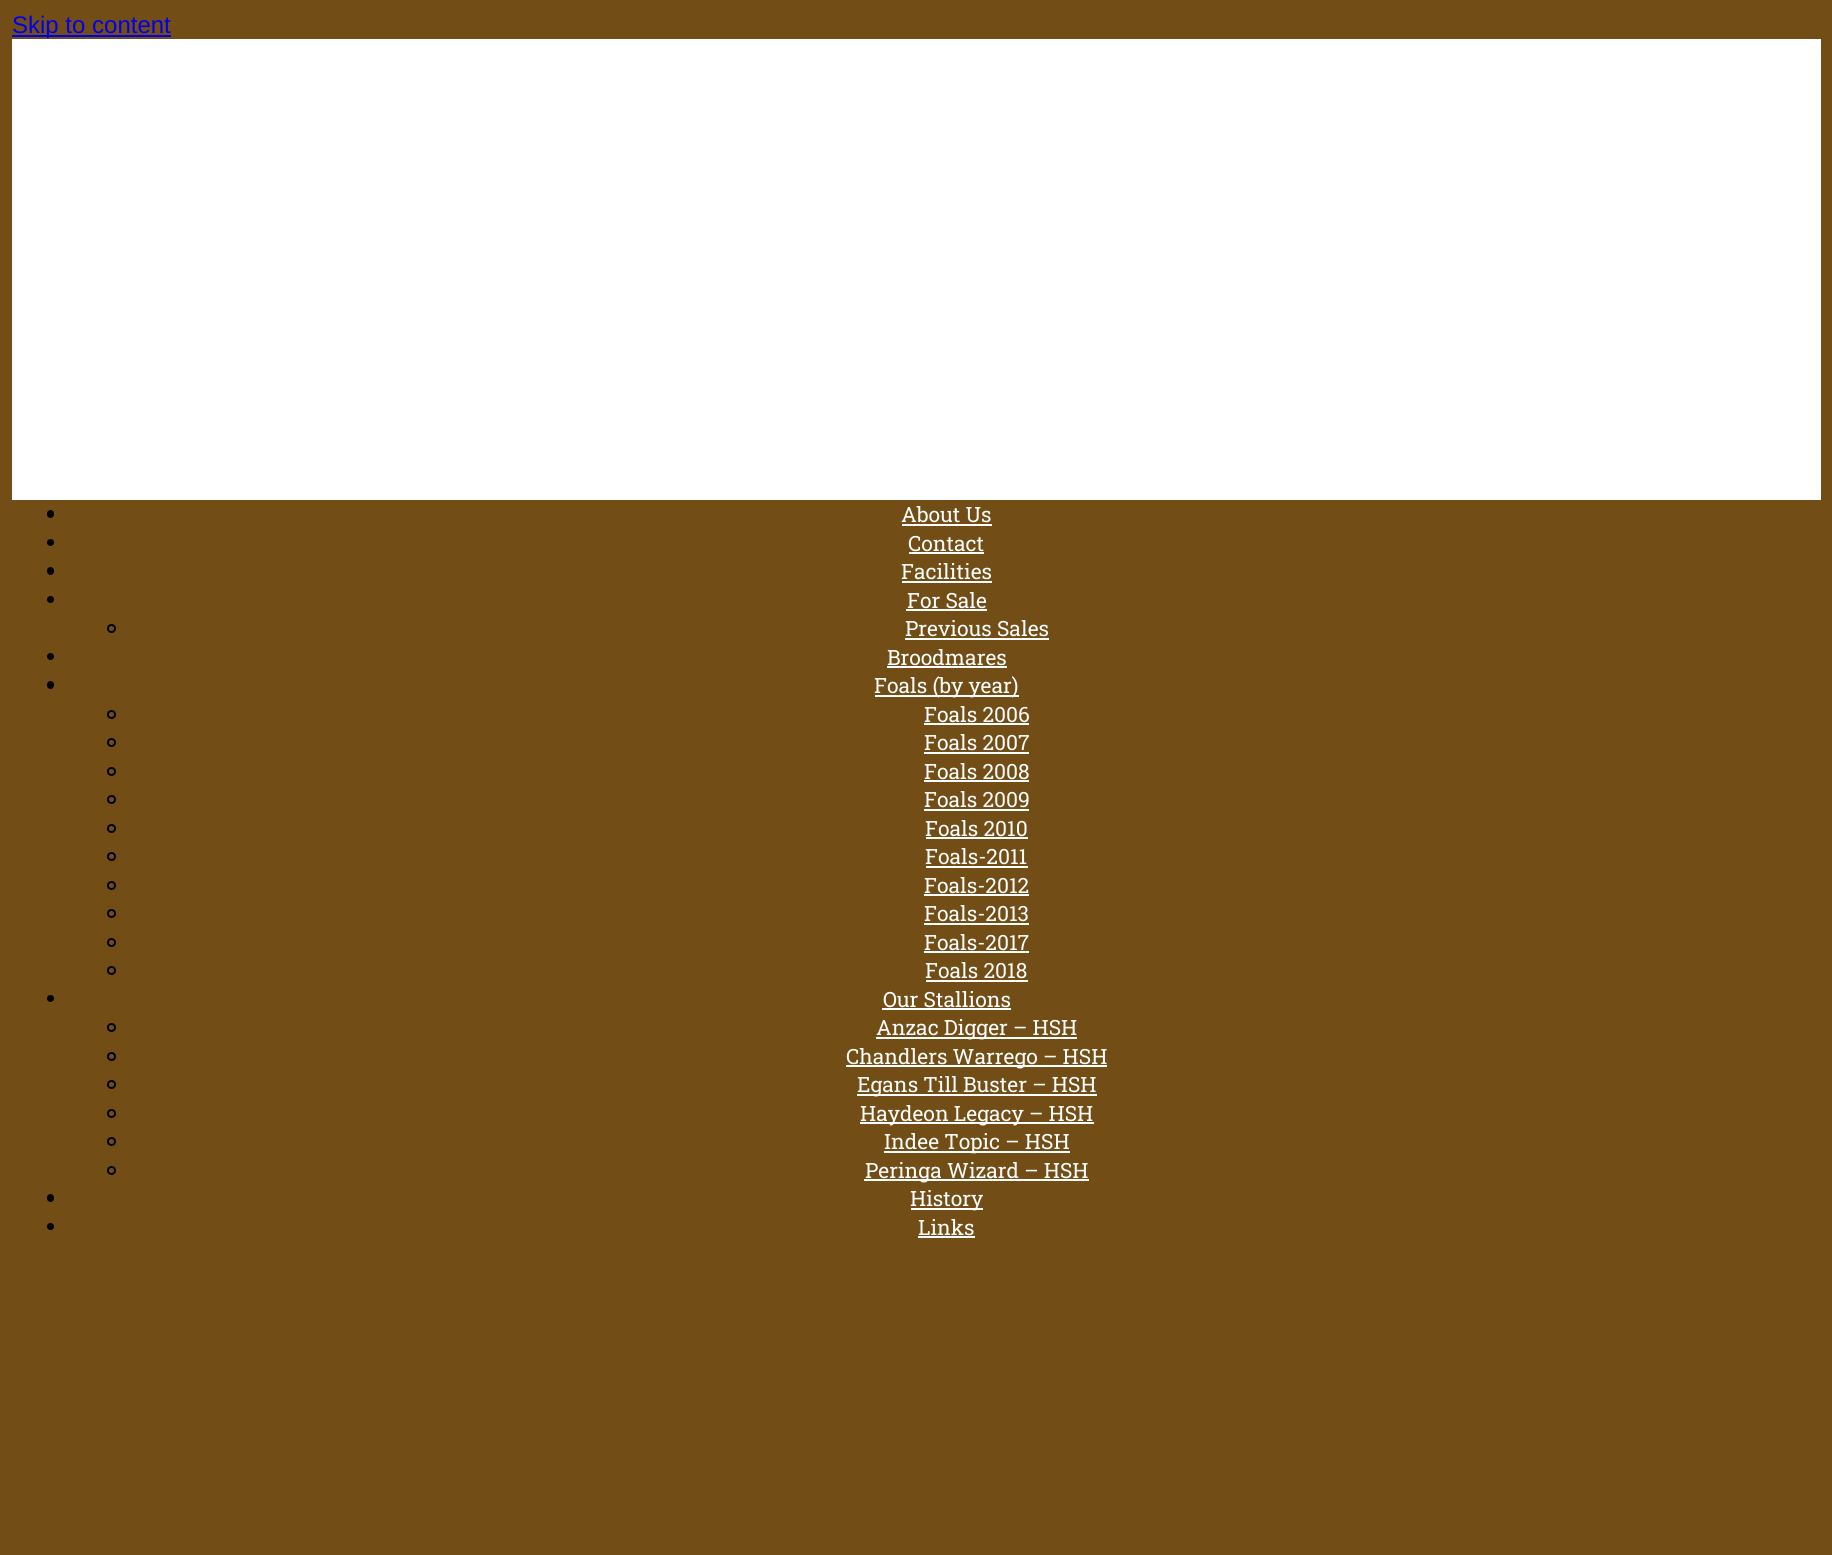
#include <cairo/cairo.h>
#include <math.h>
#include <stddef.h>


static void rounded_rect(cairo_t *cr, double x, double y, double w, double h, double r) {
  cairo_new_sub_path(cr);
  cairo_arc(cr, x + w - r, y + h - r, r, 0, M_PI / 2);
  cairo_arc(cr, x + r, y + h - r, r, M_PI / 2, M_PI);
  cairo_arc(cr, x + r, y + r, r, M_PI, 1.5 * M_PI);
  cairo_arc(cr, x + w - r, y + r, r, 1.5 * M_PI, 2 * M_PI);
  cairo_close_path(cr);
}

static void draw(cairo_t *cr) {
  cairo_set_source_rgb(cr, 114 / 255.0, 77 / 255.0, 21 / 255.0);
  cairo_paint(cr);
  cairo_set_source_rgb(cr, 0, 0, 238 / 255.0);
  cairo_rectangle(cr, 12, 35, 159, 2);
  cairo_fill(cr);
  cairo_set_source_rgb(cr, 1, 1, 1);
  cairo_rectangle(cr, 12, 39, 1809, 461);
  cairo_fill(cr);
  cairo_set_source_rgb(cr, 0, 0, 0);
  rounded_rect(cr, 47, 510, 7, 8, 3.5);
  cairo_fill(cr);
  cairo_set_source_rgb(cr, 1, 1, 1);
  cairo_rectangle(cr, 902, 524, 90, 2);
  cairo_fill(cr);
  cairo_set_source_rgb(cr, 0, 0, 0);
  cairo_arc(cr, 50.5, 542.5, 3.5, 0, 2 * M_PI);
  cairo_fill(cr);
  cairo_set_source_rgb(cr, 1, 1, 1);
  cairo_rectangle(cr, 909, 552, 75, 2);
  cairo_fill(cr);
  cairo_set_source_rgb(cr, 0, 0, 0);
  rounded_rect(cr, 47, 567, 7, 8, 3.5);
  cairo_fill(cr);
  cairo_set_source_rgb(cr, 1, 1, 1);
  cairo_rectangle(cr, 902, 581, 90, 2);
  cairo_fill(cr);
  cairo_set_source_rgb(cr, 0, 0, 0);
  cairo_arc(cr, 50.5, 599.5, 3.5, 0, 2 * M_PI);
  cairo_fill(cr);
  cairo_set_source_rgb(cr, 1, 1, 1);
  cairo_rectangle(cr, 906, 609, 81, 2);
  cairo_fill(cr);
  cairo_arc(cr, 111.5, 628.5, 3.5, 0, 2 * M_PI);
  cairo_set_source_rgb(cr, 0, 0, 0);
  cairo_stroke(cr);
  cairo_set_source_rgb(cr, 1, 1, 1);
  cairo_rectangle(cr, 905, 638, 144, 2);
  cairo_fill(cr);
  cairo_set_source_rgb(cr, 0, 0, 0);
  cairo_arc(cr, 50.5, 656.5, 3.5, 0, 2 * M_PI);
  cairo_fill(cr);
  cairo_set_source_rgb(cr, 1, 1, 1);
  cairo_rectangle(cr, 887, 666, 120, 2);
  cairo_fill(cr);
  cairo_set_source_rgb(cr, 0, 0, 0);
  rounded_rect(cr, 47, 681, 7, 8, 3.5);
  cairo_fill(cr);
  cairo_set_source_rgb(cr, 1, 1, 1);
  cairo_rectangle(cr, 875, 695, 144, 2);
  cairo_fill(cr);
  cairo_arc(cr, 111.5, 714.5, 3.5, 0, 2 * M_PI);
  cairo_set_source_rgb(cr, 0, 0, 0);
  cairo_stroke(cr);
  cairo_set_source_rgb(cr, 1, 1, 1);
  cairo_rectangle(cr, 924, 723, 105, 2);
  cairo_fill(cr);
  cairo_arc(cr, 111.5, 742.5, 3.5, 0, 2 * M_PI);
  cairo_set_source_rgb(cr, 0, 0, 0);
  cairo_stroke(cr);
  cairo_set_source_rgb(cr, 1, 1, 1);
  cairo_rectangle(cr, 924, 752, 105, 2);
  cairo_fill(cr);
  cairo_arc(cr, 111.5, 771.5, 3.5, 0, 2 * M_PI);
  cairo_set_source_rgb(cr, 0, 0, 0);
  cairo_stroke(cr);
  cairo_set_source_rgb(cr, 1, 1, 1);
  cairo_rectangle(cr, 924, 780, 105, 2);
  cairo_fill(cr);
  cairo_arc(cr, 111.5, 799.5, 3.5, 0, 2 * M_PI);
  cairo_set_source_rgb(cr, 0, 0, 0);
  cairo_stroke(cr);
  cairo_set_source_rgb(cr, 1, 1, 1);
  cairo_rectangle(cr, 924, 809, 105, 2);
  cairo_fill(cr);
  cairo_arc(cr, 111.5, 828.5, 3.5, 0, 2 * M_PI);
  cairo_set_source_rgb(cr, 0, 0, 0);
  cairo_stroke(cr);
  cairo_set_source_rgb(cr, 1, 1, 1);
  cairo_rectangle(cr, 926, 837, 102, 2);
  cairo_fill(cr);
  cairo_arc(cr, 111.5, 856.5, 3.5, 0, 2 * M_PI);
  cairo_set_source_rgb(cr, 0, 0, 0);
  cairo_stroke(cr);
  cairo_set_source_rgb(cr, 1, 1, 1);
  cairo_rectangle(cr, 926, 866, 102, 2);
  cairo_fill(cr);
  cairo_arc(cr, 111.5, 885.5, 3.5, 0, 2 * M_PI);
  cairo_set_source_rgb(cr, 0, 0, 0);
  cairo_stroke(cr);
  cairo_set_source_rgb(cr, 1, 1, 1);
  cairo_rectangle(cr, 924, 894, 105, 2);
  cairo_fill(cr);
  cairo_arc(cr, 111.5, 913.5, 3.5, 0, 2 * M_PI);
  cairo_set_source_rgb(cr, 0, 0, 0);
  cairo_stroke(cr);
  cairo_set_source_rgb(cr, 1, 1, 1);
  cairo_rectangle(cr, 924, 923, 105, 2);
  cairo_fill(cr);
  cairo_arc(cr, 111.5, 942.5, 3.5, 0, 2 * M_PI);
  cairo_set_source_rgb(cr, 0, 0, 0);
  cairo_stroke(cr);
  cairo_set_source_rgb(cr, 1, 1, 1);
  cairo_rectangle(cr, 924, 951, 105, 2);
  cairo_fill(cr);
  cairo_arc(cr, 111.5, 970.5, 3.5, 0, 2 * M_PI);
  cairo_set_source_rgb(cr, 0, 0, 0);
  cairo_stroke(cr);
  cairo_set_source_rgb(cr, 1, 1, 1);
  cairo_rectangle(cr, 926, 980, 102, 2);
  cairo_fill(cr);
  cairo_set_source_rgb(cr, 0, 0, 0);
  cairo_arc(cr, 50.5, 998.5, 3.5, 0, 2 * M_PI);
  cairo_fill(cr);
  cairo_set_source_rgb(cr, 1, 1, 1);
  cairo_rectangle(cr, 882, 1008, 129, 2);
  cairo_fill(cr);
  cairo_arc(cr, 111.5, 1027.5, 3.5, 0, 2 * M_PI);
  cairo_set_source_rgb(cr, 0, 0, 0);
  cairo_stroke(cr);
  cairo_set_source_rgb(cr, 1, 1, 1);
  cairo_rectangle(cr, 876, 1037, 201, 2);
  cairo_fill(cr);
  cairo_arc(cr, 111.5, 1056.5, 3.5, 0, 2 * M_PI);
  cairo_set_source_rgb(cr, 0, 0, 0);
  cairo_stroke(cr);
  cairo_set_source_rgb(cr, 1, 1, 1);
  cairo_rectangle(cr, 846, 1065, 261, 2);
  cairo_fill(cr);
  cairo_arc(cr, 111.5, 1084.5, 3.5, 0, 2 * M_PI);
  cairo_set_source_rgb(cr, 0, 0, 0);
  cairo_stroke(cr);
  cairo_set_source_rgb(cr, 1, 1, 1);
  cairo_rectangle(cr, 857, 1094, 240, 2);
  cairo_fill(cr);
  cairo_arc(cr, 111.5, 1113.5, 3.5, 0, 2 * M_PI);
  cairo_set_source_rgb(cr, 0, 0, 0);
  cairo_stroke(cr);
  cairo_set_source_rgb(cr, 1, 1, 1);
  cairo_rectangle(cr, 860, 1122, 234, 2);
  cairo_fill(cr);
  cairo_arc(cr, 111.5, 1141.5, 3.5, 0, 2 * M_PI);
  cairo_set_source_rgb(cr, 0, 0, 0);
  cairo_stroke(cr);
  cairo_set_source_rgb(cr, 1, 1, 1);
  cairo_rectangle(cr, 884, 1151, 186, 2);
  cairo_fill(cr);
  cairo_arc(cr, 111.5, 1170.5, 3.5, 0, 2 * M_PI);
  cairo_set_source_rgb(cr, 0, 0, 0);
  cairo_stroke(cr);
  cairo_set_source_rgb(cr, 1, 1, 1);
  cairo_rectangle(cr, 864, 1179, 225, 2);
  cairo_fill(cr);
  cairo_set_source_rgb(cr, 0, 0, 0);
  rounded_rect(cr, 47, 1194, 7, 8, 3.5);
  cairo_fill(cr);
  cairo_set_source_rgb(cr, 1, 1, 1);
  cairo_rectangle(cr, 911, 1208, 72, 2);
  cairo_fill(cr);
  cairo_set_source_rgb(cr, 0, 0, 0);
  cairo_arc(cr, 50.5, 1226.5, 3.5, 0, 2 * M_PI);
  cairo_fill(cr);
  cairo_set_source_rgb(cr, 1, 1, 1);
  cairo_rectangle(cr, 918, 1236, 57, 2);
  cairo_fill(cr);
  cairo_select_font_face(cr, "Liberation Sans", CAIRO_FONT_SLANT_NORMAL, CAIRO_FONT_WEIGHT_NORMAL);
  cairo_set_font_size(cr, 24);
  cairo_set_source_rgb(cr, 0, 0, 238 / 255.0);
  cairo_move_to(cr, 12, 33);
  cairo_show_text(cr, "Skip to content");
  cairo_select_font_face(cr, "Roboto Slab", CAIRO_FONT_SLANT_NORMAL, CAIRO_FONT_WEIGHT_NORMAL);
  cairo_set_font_size(cr, 21);
  cairo_set_source_rgb(cr, 1, 1, 1);
  cairo_move_to(cr, 901, 522);
  cairo_show_text(cr, "About Us");
  cairo_move_to(cr, 908, 551);
  cairo_show_text(cr, "Contact");
  cairo_move_to(cr, 901, 579);
  cairo_show_text(cr, "Facilities");
  cairo_move_to(cr, 907, 608);
  cairo_show_text(cr, "For Sale");
  cairo_move_to(cr, 905, 636);
  cairo_show_text(cr, "Previous Sales");
  cairo_move_to(cr, 887, 665);
  cairo_show_text(cr, "Broodmares");
  cairo_move_to(cr, 874, 693);
  cairo_show_text(cr, "Foals (by year)");
  cairo_move_to(cr, 924, 722);
  cairo_show_text(cr, "Foals 2006");
  cairo_move_to(cr, 924, 750);
  cairo_show_text(cr, "Foals 2007");
  cairo_move_to(cr, 924, 779);
  cairo_show_text(cr, "Foals 2008");
  cairo_move_to(cr, 924, 807);
  cairo_show_text(cr, "Foals 2009");
  cairo_move_to(cr, 925, 836);
  cairo_show_text(cr, "Foals 2010");
  cairo_move_to(cr, 925, 864);
  cairo_show_text(cr, "Foals-2011");
  cairo_move_to(cr, 924, 893);
  cairo_show_text(cr, "Foals-2012");
  cairo_move_to(cr, 924, 921);
  cairo_show_text(cr, "Foals-2013");
  cairo_move_to(cr, 924, 950);
  cairo_show_text(cr, "Foals-2017");
  cairo_move_to(cr, 925, 978);
  cairo_show_text(cr, "Foals 2018");
  cairo_move_to(cr, 883, 1007);
  cairo_show_text(cr, "Our Stallions");
  cairo_move_to(cr, 876, 1035);
  cairo_show_text(cr, "Anzac Digger – HSH");
  cairo_move_to(cr, 846, 1064);
  cairo_show_text(cr, "Chandlers Warrego – HSH");
  cairo_move_to(cr, 857, 1092);
  cairo_show_text(cr, "Egans Till Buster – HSH");
  cairo_move_to(cr, 860, 1121);
  cairo_show_text(cr, "Haydeon Legacy – HSH");
  cairo_move_to(cr, 884, 1149);
  cairo_show_text(cr, "Indee Topic – HSH");
  cairo_move_to(cr, 865, 1178);
  cairo_show_text(cr, "Peringa Wizard – HSH");
  cairo_move_to(cr, 910, 1206);
  cairo_show_text(cr, "History");
  cairo_move_to(cr, 918, 1235);
  cairo_show_text(cr, "Links");
}

int main(void) {
  cairo_surface_t *surface = cairo_image_surface_create(CAIRO_FORMAT_RGB24, 1832, 1555);
  cairo_t *cr = cairo_create(surface);
  cairo_font_options_t *options = cairo_font_options_create();
  cairo_font_options_set_hint_metrics(options, CAIRO_HINT_METRICS_OFF);
  cairo_font_options_set_hint_style(options, CAIRO_HINT_STYLE_NONE);
  cairo_set_font_options(cr, options);
  cairo_set_miter_limit(cr, 4);
  draw(cr);
  cairo_surface_write_to_png(surface, "out.png");
  cairo_font_options_destroy(options);
  cairo_destroy(cr);
  cairo_surface_destroy(surface);
  return 0;
}
